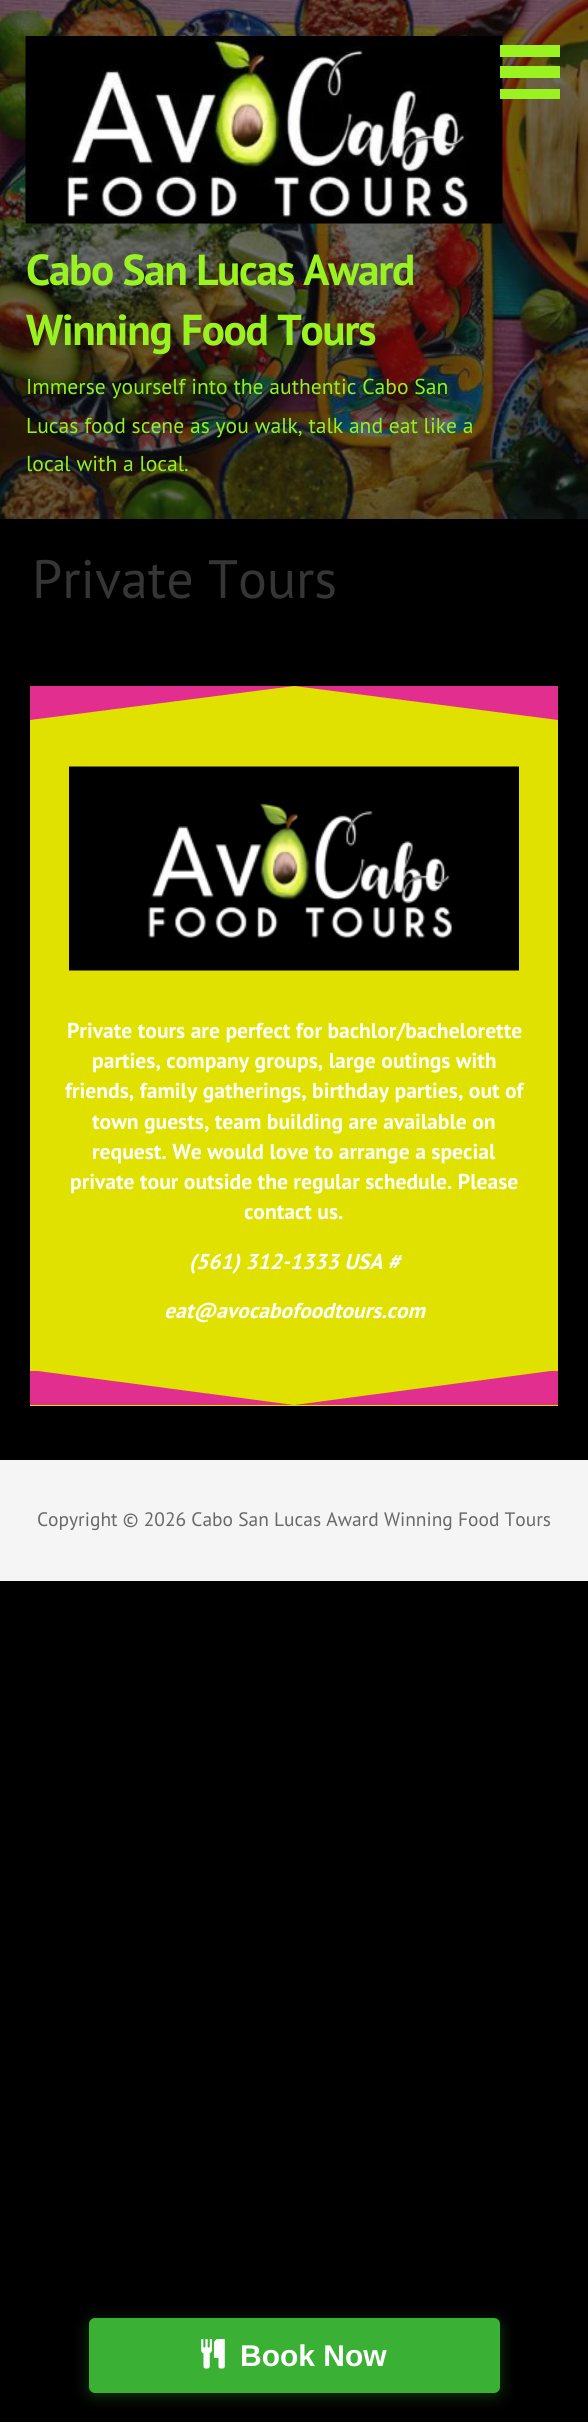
#include <cairo/cairo.h>
#include <math.h>
#include <stddef.h>


static void draw_spaced(cairo_t *cr, double x, double y, const char *s, double letter, double word) {
  cairo_move_to(cr, x, y);
  while (*s) {
    char ch[5] = {0};
    int n = 0;
    do ch[n++] = *s++; while ((*s & 0xC0) == 0x80);
    cairo_show_text(cr, ch);
    cairo_rel_move_to(cr, letter + word * (*ch == ' '), 0);
  }
}

static void rounded_rect(cairo_t *cr, double x, double y, double w, double h, double r) {
  cairo_new_sub_path(cr);
  cairo_arc(cr, x + w - r, y + h - r, r, 0, M_PI / 2);
  cairo_arc(cr, x + r, y + h - r, r, M_PI / 2, M_PI);
  cairo_arc(cr, x + r, y + r, r, M_PI, 1.5 * M_PI);
  cairo_arc(cr, x + w - r, y + r, r, 1.5 * M_PI, 2 * M_PI);
  cairo_close_path(cr);
}

static void draw_shadow(cairo_t *cr, double x, double y, double w, double h, double r, double blur, double alpha) {
  cairo_push_group_with_content(cr, CAIRO_CONTENT_ALPHA);
  cairo_set_operator(cr, CAIRO_OPERATOR_SOURCE);
  for (int i = 15; i >= -15 && fmin(w, h) + blur * i / 3 > 0; i -= 2) {
    double e = blur * i / 6;
    cairo_set_source_rgba(cr, 0, 0, 0, alpha * erfc((i - 1) / 8.5) / 2);
    rounded_rect(cr, x - e, y - e, w + 2 * e, h + 2 * e, fmax(0, fmin(r + e + blur * .6, fmin(w, h) / 2 + e)));
    cairo_fill(cr);
  }
  cairo_pattern_t *soft = cairo_pop_group(cr);
  cairo_mask(cr, soft);
  cairo_pattern_destroy(soft);
}

static void draw_image(cairo_t *cr, const char *path, double x, double y, double w, double h) {
  cairo_surface_t *image = cairo_image_surface_create_from_png(path);
  cairo_save(cr);
  cairo_set_source_surface(cr, image, x, y);
  cairo_rectangle(cr, x, y, w, h);
  cairo_fill(cr);
  cairo_restore(cr);
  cairo_surface_destroy(image);
}

static void draw(cairo_t *cr) {
  cairo_set_source_rgb(cr, 0, 0, 0);
  cairo_paint(cr);
  draw_image(cr, "images/1.png", 0, 0, 588, 519);
  draw_image(cr, "images/2.png", 25, 36, 478, 188);
  cairo_set_source_rgb(cr, 155 / 255.0, 242 / 255.0, 33 / 255.0);
  cairo_rectangle(cr, 500, 45, 60, 12);
  cairo_fill(cr);
  cairo_rectangle(cr, 500, 66, 60, 12);
  cairo_fill(cr);
  cairo_rectangle(cr, 500, 89, 60, 10);
  cairo_fill(cr);
  cairo_set_source_rgb(cr, 225 / 255.0, 225 / 255.0, 0);
  cairo_rectangle(cr, 30, 686, 528, 720);
  cairo_fill(cr);
  cairo_set_source_rgb(cr, 226 / 255.0, 47 / 255.0, 143 / 255.0);
  cairo_new_path(cr);
  cairo_move_to(cr, 30, 686);
  cairo_line_to(cr, 558, 686);
  cairo_line_to(cr, 558, 720);
  cairo_line_to(cr, 294, 686);
  cairo_line_to(cr, 30, 720);
  cairo_close_path(cr);
  cairo_fill(cr);
  draw_image(cr, "images/3.png", 69, 766, 450, 205);
  cairo_save(cr);
  cairo_rectangle(cr, 30, 1371, 528, 35);
  cairo_clip(cr);
  cairo_new_path(cr);
  cairo_move_to(cr, 30, 1405);
  cairo_line_to(cr, 558, 1405);
  cairo_line_to(cr, 558, 1370);
  cairo_line_to(cr, 294, 1405);
  cairo_line_to(cr, 30, 1370);
  cairo_close_path(cr);
  cairo_fill(cr);
  cairo_restore(cr);
  cairo_set_source_rgb(cr, 245 / 255.0, 245 / 255.0, 245 / 255.0);
  cairo_rectangle(cr, 0, 1460, 588, 121);
  cairo_fill(cr);
  cairo_set_source_rgb(cr, 58 / 255.0, 177 / 255.0, 52 / 255.0);
  draw_shadow(cr, 89, 2321, 411, 75, 6, 7.5, 0.3);
  cairo_set_source_rgb(cr, 58 / 255.0, 177 / 255.0, 52 / 255.0);
  rounded_rect(cr, 90, 2319, 409, 73, 5);
  cairo_fill_preserve(cr);
  cairo_stroke(cr);
  draw_image(cr, "images/4.png", 201, 2339, 24, 30);
  cairo_select_font_face(cr, "PT Sans", CAIRO_FONT_SLANT_NORMAL, CAIRO_FONT_WEIGHT_BOLD);
  cairo_set_font_size(cr, 43.25);
  cairo_set_source_rgb(cr, 155 / 255.0, 242 / 255.0, 33 / 255.0);
  draw_spaced(cr, 26, 285, "Cabo San Lucas Award", -1.3, 0);
  draw_spaced(cr, 26, 345, "Winning Food Tours", -1.3, 0);
  cairo_select_font_face(cr, "PT Sans", CAIRO_FONT_SLANT_NORMAL, CAIRO_FONT_WEIGHT_NORMAL);
  cairo_set_font_size(cr, 21.6);
  cairo_set_source_rgb(cr, 145 / 255.0, 242 / 255.0, 33 / 255.0);
  cairo_move_to(cr, 26, 394);
  cairo_show_text(cr, "Immerse yourself into the authentic Cabo San");
  cairo_move_to(cr, 26, 433);
  cairo_show_text(cr, "Lucas food scene as you walk, talk and eat like a");
  cairo_move_to(cr, 26, 471);
  cairo_show_text(cr, "local with a local.");
  cairo_set_font_size(cr, 54);
  cairo_set_source_rgb(cr, 53 / 255.0, 53 / 255.0, 53 / 255.0);
  cairo_move_to(cr, 32, 598);
  cairo_show_text(cr, "Private Tours");
  cairo_select_font_face(cr, "PT Sans", CAIRO_FONT_SLANT_NORMAL, CAIRO_FONT_WEIGHT_BOLD);
  cairo_set_font_size(cr, 21.6);
  cairo_set_source_rgb(cr, 1, 1, 1);
  cairo_move_to(cr, 67, 1038);
  cairo_show_text(cr, "Private tours are perfect for bachlor/bachelorette");
  cairo_move_to(cr, 92, 1068);
  cairo_show_text(cr, "parties, company groups, large outings with");
  cairo_move_to(cr, 65, 1098);
  cairo_show_text(cr, "friends, family gatherings, birthday parties, out of");
  cairo_move_to(cr, 92, 1129);
  cairo_show_text(cr, "town guests, team building are available on");
  cairo_move_to(cr, 92, 1159);
  cairo_show_text(cr, "request. We would love to arrange a special");
  cairo_move_to(cr, 70, 1189);
  cairo_show_text(cr, "private tour outside the regular schedule. Please");
  cairo_move_to(cr, 244, 1219);
  cairo_show_text(cr, "contact us.");
  cairo_select_font_face(cr, "PT Sans", CAIRO_FONT_SLANT_ITALIC, CAIRO_FONT_WEIGHT_BOLD);
  cairo_move_to(cr, 189, 1269);
  cairo_show_text(cr, "(561) 312-1333 USA #");
  cairo_move_to(cr, 164, 1318);
  cairo_show_text(cr, "eat@avocabofoodtours.com");
  cairo_select_font_face(cr, "PT Sans", CAIRO_FONT_SLANT_NORMAL, CAIRO_FONT_WEIGHT_NORMAL);
  cairo_set_font_size(cr, 19.45);
  cairo_set_source_rgb(cr, 104 / 255.0, 104 / 255.0, 104 / 255.0);
  cairo_move_to(cr, 37, 1526);
  cairo_show_text(cr, "Copyright © 2026 Cabo San Lucas Award Winning Food Tours");
  cairo_select_font_face(cr, "Liberation Sans", CAIRO_FONT_SLANT_NORMAL, CAIRO_FONT_WEIGHT_BOLD);
  cairo_set_font_size(cr, 30);
  cairo_set_source_rgb(cr, 1, 1, 1);
  cairo_move_to(cr, 240, 2366);
  cairo_show_text(cr, "Book Now");
}

int main(void) {
  cairo_surface_t *surface = cairo_image_surface_create(CAIRO_FORMAT_RGB24, 588, 2422);
  cairo_t *cr = cairo_create(surface);
  cairo_font_options_t *options = cairo_font_options_create();
  cairo_font_options_set_hint_metrics(options, CAIRO_HINT_METRICS_OFF);
  cairo_font_options_set_hint_style(options, CAIRO_HINT_STYLE_NONE);
  cairo_set_font_options(cr, options);
  cairo_set_miter_limit(cr, 4);
  draw(cr);
  cairo_surface_write_to_png(surface, "out.png");
  cairo_font_options_destroy(options);
  cairo_destroy(cr);
  cairo_surface_destroy(surface);
  return 0;
}
